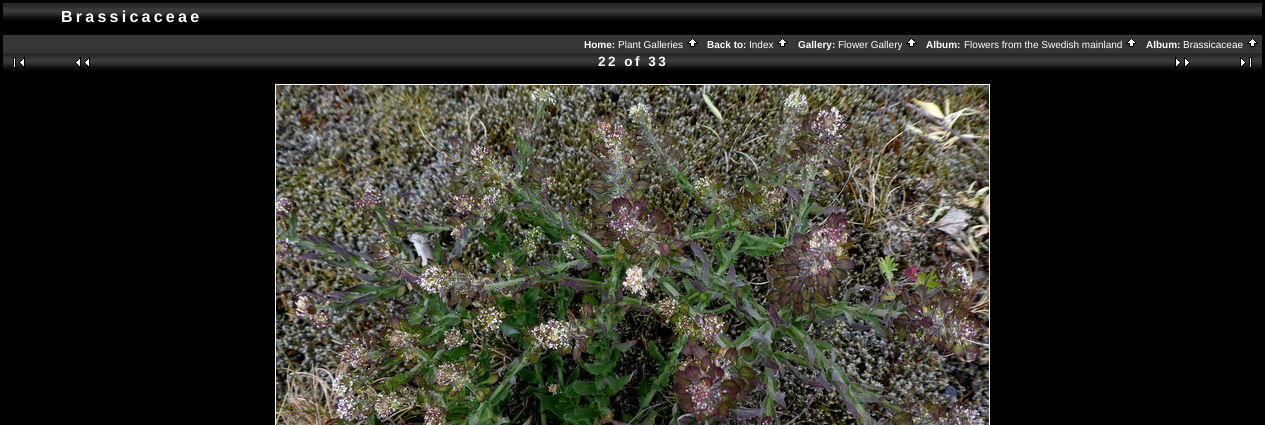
#include <cairo/cairo.h>
#include <math.h>
#include <stddef.h>


static void draw_spaced(cairo_t *cr, double x, double y, const char *s, double letter, double word) {
  cairo_move_to(cr, x, y);
  while (*s) {
    char ch[5] = {0};
    int n = 0;
    do ch[n++] = *s++; while ((*s & 0xC0) == 0x80);
    cairo_show_text(cr, ch);
    cairo_rel_move_to(cr, letter + word * (*ch == ' '), 0);
  }
}

static void draw_image(cairo_t *cr, const char *path, double x, double y, double w, double h) {
  cairo_surface_t *image = cairo_image_surface_create_from_png(path);
  cairo_save(cr);
  cairo_set_source_surface(cr, image, x, y);
  cairo_rectangle(cr, x, y, w, h);
  cairo_fill(cr);
  cairo_restore(cr);
  cairo_surface_destroy(image);
}

static void draw(cairo_t *cr) {
  cairo_set_source_rgb(cr, 0, 0, 0);
  cairo_paint(cr);
  draw_image(cr, "images/1.png", 3, 3, 1259, 17);
  cairo_set_source_rgb(cr, 54 / 255.0, 54 / 255.0, 54 / 255.0);
  cairo_rectangle(cr, 3, 35, 1259, 18);
  cairo_fill(cr);
  draw_image(cr, "images/2.png", 687, 38, 11, 9);
  draw_image(cr, "images/2.png", 777, 38, 11, 9);
  draw_image(cr, "images/2.png", 906, 38, 11, 9);
  draw_image(cr, "images/2.png", 1126, 38, 11, 9);
  draw_image(cr, "images/2.png", 1247, 38, 11, 9);
  draw_image(cr, "images/1.png", 3, 53, 1259, 17);
  draw_image(cr, "images/3.png", 13, 57, 12, 11);
  draw_image(cr, "images/4.png", 75, 57, 15, 11);
  draw_image(cr, "images/5.png", 1175, 57, 15, 11);
  draw_image(cr, "images/6.png", 1240, 57, 12, 11);
  cairo_set_source_rgb(cr, 1, 1, 1);
  cairo_rectangle(cr, 275, 84, 715, 1);
  cairo_fill(cr);
  cairo_rectangle(cr, 275, 85, 1, 340);
  cairo_fill(cr);
  draw_image(cr, "images/7.png", 276, 85, 713, 340);
  cairo_rectangle(cr, 989, 85, 1, 340);
  cairo_fill(cr);
  cairo_select_font_face(cr, "Liberation Sans", CAIRO_FONT_SLANT_NORMAL, CAIRO_FONT_WEIGHT_BOLD);
  cairo_set_font_size(cr, 16);
  draw_spaced(cr, 61, 22, "Brassicaceae", 3.25, 0);
  cairo_set_font_size(cr, 10);
  cairo_move_to(cr, 584, 48);
  cairo_show_text(cr, "Home:");
  cairo_select_font_face(cr, "Liberation Sans", CAIRO_FONT_SLANT_NORMAL, CAIRO_FONT_WEIGHT_NORMAL);
  cairo_move_to(cr, 618, 48);
  cairo_show_text(cr, "Plant Galleries");
  cairo_select_font_face(cr, "Liberation Sans", CAIRO_FONT_SLANT_NORMAL, CAIRO_FONT_WEIGHT_BOLD);
  cairo_move_to(cr, 707, 48);
  cairo_show_text(cr, "Back to:");
  cairo_select_font_face(cr, "Liberation Sans", CAIRO_FONT_SLANT_NORMAL, CAIRO_FONT_WEIGHT_NORMAL);
  cairo_move_to(cr, 749, 48);
  cairo_show_text(cr, "Index");
  cairo_select_font_face(cr, "Liberation Sans", CAIRO_FONT_SLANT_NORMAL, CAIRO_FONT_WEIGHT_BOLD);
  cairo_move_to(cr, 798, 48);
  cairo_show_text(cr, "Gallery:");
  cairo_select_font_face(cr, "Liberation Sans", CAIRO_FONT_SLANT_NORMAL, CAIRO_FONT_WEIGHT_NORMAL);
  cairo_move_to(cr, 838, 48);
  cairo_show_text(cr, "Flower Gallery");
  cairo_select_font_face(cr, "Liberation Sans", CAIRO_FONT_SLANT_NORMAL, CAIRO_FONT_WEIGHT_BOLD);
  cairo_move_to(cr, 926, 48);
  cairo_show_text(cr, "Album:");
  cairo_select_font_face(cr, "Liberation Sans", CAIRO_FONT_SLANT_NORMAL, CAIRO_FONT_WEIGHT_NORMAL);
  cairo_move_to(cr, 964, 48);
  cairo_show_text(cr, "Flowers from the Swedish mainland");
  cairo_select_font_face(cr, "Liberation Sans", CAIRO_FONT_SLANT_NORMAL, CAIRO_FONT_WEIGHT_BOLD);
  cairo_move_to(cr, 1146, 48);
  cairo_show_text(cr, "Album:");
  cairo_select_font_face(cr, "Liberation Sans", CAIRO_FONT_SLANT_NORMAL, CAIRO_FONT_WEIGHT_NORMAL);
  cairo_move_to(cr, 1183, 48);
  cairo_show_text(cr, "Brassicaceae");
  cairo_select_font_face(cr, "Liberation Sans", CAIRO_FONT_SLANT_NORMAL, CAIRO_FONT_WEIGHT_BOLD);
  cairo_set_font_size(cr, 13.5);
  draw_spaced(cr, 598, 66, "22 of 33", 2.5, 0);
}

int main(void) {
  cairo_surface_t *surface = cairo_image_surface_create(CAIRO_FORMAT_RGB24, 1265, 425);
  cairo_t *cr = cairo_create(surface);
  cairo_font_options_t *options = cairo_font_options_create();
  cairo_font_options_set_hint_metrics(options, CAIRO_HINT_METRICS_OFF);
  cairo_font_options_set_hint_style(options, CAIRO_HINT_STYLE_NONE);
  cairo_set_font_options(cr, options);
  cairo_set_miter_limit(cr, 4);
  draw(cr);
  cairo_surface_write_to_png(surface, "out.png");
  cairo_font_options_destroy(options);
  cairo_destroy(cr);
  cairo_surface_destroy(surface);
  return 0;
}
